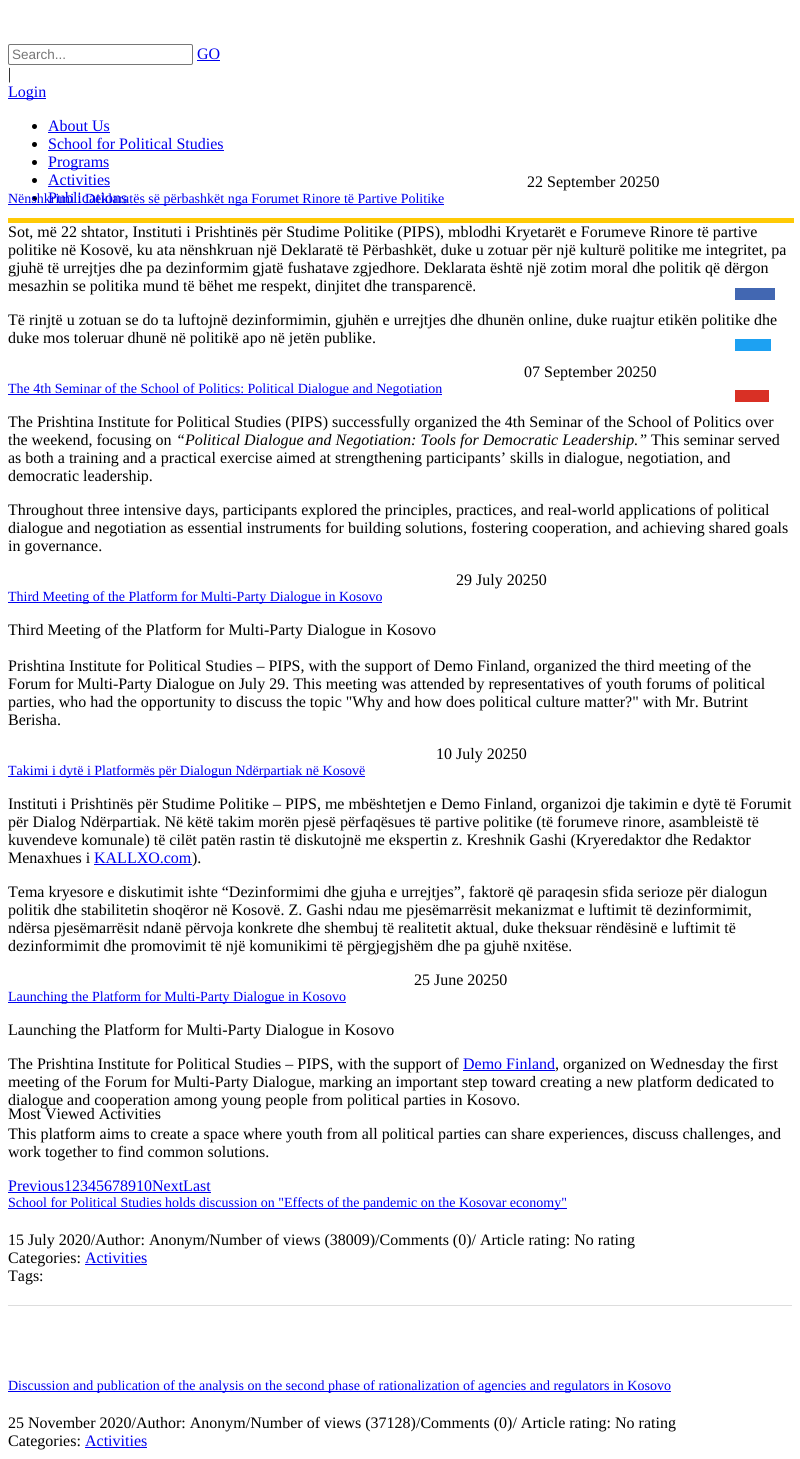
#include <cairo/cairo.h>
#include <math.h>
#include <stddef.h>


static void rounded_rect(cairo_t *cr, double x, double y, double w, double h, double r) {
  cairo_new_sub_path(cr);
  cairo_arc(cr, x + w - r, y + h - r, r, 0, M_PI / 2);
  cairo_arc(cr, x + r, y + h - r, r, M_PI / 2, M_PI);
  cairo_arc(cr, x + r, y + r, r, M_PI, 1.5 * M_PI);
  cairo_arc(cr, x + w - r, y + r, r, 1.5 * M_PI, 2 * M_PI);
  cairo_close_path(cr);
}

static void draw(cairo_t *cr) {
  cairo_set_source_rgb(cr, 1, 1, 1);
  cairo_paint(cr);
  rounded_rect(cr, 8.5, 44.5, 184, 20, 1.5);
  cairo_set_source_rgb(cr, 118 / 255.0, 118 / 255.0, 118 / 255.0);
  cairo_set_line_width(cr, 1);
  cairo_stroke(cr);
  cairo_set_source_rgb(cr, 0, 0, 238 / 255.0);
  cairo_rectangle(cr, 197, 60, 23, 1);
  cairo_fill(cr);
  cairo_rectangle(cr, 8, 98, 38, 1);
  cairo_fill(cr);
  cairo_set_source_rgb(cr, 0, 0, 0);
  cairo_arc(cr, 34.5, 126.5, 2.5, 0, 2 * M_PI);
  cairo_fill(cr);
  cairo_set_source_rgb(cr, 0, 0, 238 / 255.0);
  cairo_rectangle(cr, 48, 132, 62, 1);
  cairo_fill(cr);
  cairo_set_source_rgb(cr, 0, 0, 0);
  cairo_arc(cr, 34.5, 144.5, 2.5, 0, 2 * M_PI);
  cairo_fill(cr);
  cairo_set_source_rgb(cr, 0, 0, 238 / 255.0);
  cairo_rectangle(cr, 48, 150, 176, 1);
  cairo_fill(cr);
  cairo_set_source_rgb(cr, 0, 0, 0);
  cairo_arc(cr, 34.5, 162.5, 2.5, 0, 2 * M_PI);
  cairo_fill(cr);
  cairo_set_source_rgb(cr, 0, 0, 238 / 255.0);
  cairo_rectangle(cr, 48, 168, 61, 1);
  cairo_fill(cr);
  cairo_set_source_rgb(cr, 0, 0, 0);
  cairo_arc(cr, 34.5, 180.5, 2.5, 0, 2 * M_PI);
  cairo_fill(cr);
  cairo_set_source_rgb(cr, 0, 0, 238 / 255.0);
  cairo_rectangle(cr, 48, 186, 62, 1);
  cairo_fill(cr);
  cairo_set_source_rgb(cr, 0, 0, 0);
  cairo_arc(cr, 34.5, 198.5, 2.5, 0, 2 * M_PI);
  cairo_fill(cr);
  cairo_set_source_rgb(cr, 0, 0, 238 / 255.0);
  cairo_rectangle(cr, 8, 204, 436, 1);
  cairo_fill(cr);
  cairo_rectangle(cr, 8, 394, 434, 1);
  cairo_fill(cr);
  cairo_rectangle(cr, 8, 602, 374, 1);
  cairo_fill(cr);
  cairo_rectangle(cr, 8, 776, 357, 1);
  cairo_fill(cr);
  cairo_rectangle(cr, 94, 864, 98, 1);
  cairo_fill(cr);
  cairo_rectangle(cr, 8, 1002, 338, 1);
  cairo_fill(cr);
  cairo_rectangle(cr, 463, 1070, 92, 1);
  cairo_fill(cr);
  cairo_rectangle(cr, 8, 1192, 203, 1);
  cairo_fill(cr);
  cairo_set_source_rgb(cr, 221 / 255.0, 221 / 255.0, 221 / 255.0);
  cairo_rectangle(cr, 8, 1305, 784, 1);
  cairo_fill(cr);
  cairo_set_source_rgb(cr, 0, 0, 238 / 255.0);
  cairo_rectangle(cr, 8, 1208, 559, 1);
  cairo_fill(cr);
  cairo_rectangle(cr, 85, 1264, 62, 1);
  cairo_fill(cr);
  cairo_rectangle(cr, 8, 1391, 663, 1);
  cairo_fill(cr);
  cairo_rectangle(cr, 85, 1447, 62, 1);
  cairo_fill(cr);
  cairo_set_source_rgb(cr, 1, 202 / 255.0, 5 / 255.0);
  cairo_rectangle(cr, 8, 218, 786, 5);
  cairo_fill(cr);
  cairo_set_source_rgb(cr, 66 / 255.0, 103 / 255.0, 178 / 255.0);
  cairo_rectangle(cr, 735, 288, 40, 12);
  cairo_fill(cr);
  cairo_set_source_rgb(cr, 29 / 255.0, 161 / 255.0, 242 / 255.0);
  cairo_rectangle(cr, 735, 339, 36, 12);
  cairo_fill(cr);
  cairo_set_source_rgb(cr, 217 / 255.0, 48 / 255.0, 37 / 255.0);
  cairo_rectangle(cr, 735, 390, 34, 12);
  cairo_fill(cr);
  cairo_select_font_face(cr, "Liberation Sans", CAIRO_FONT_SLANT_NORMAL, CAIRO_FONT_WEIGHT_NORMAL);
  cairo_set_font_size(cr, 13.5);
  cairo_set_source_rgb(cr, 117 / 255.0, 117 / 255.0, 117 / 255.0);
  cairo_move_to(cr, 12, 59);
  cairo_show_text(cr, "Search...");
  cairo_select_font_face(cr, "Liberation Serif", CAIRO_FONT_SLANT_NORMAL, CAIRO_FONT_WEIGHT_NORMAL);
  cairo_set_font_size(cr, 16);
  cairo_set_source_rgb(cr, 0, 0, 238 / 255.0);
  cairo_move_to(cr, 197, 59);
  cairo_show_text(cr, "GO");
  cairo_set_source_rgb(cr, 0, 0, 0);
  cairo_move_to(cr, 8, 79);
  cairo_show_text(cr, "|");
  cairo_set_source_rgb(cr, 0, 0, 238 / 255.0);
  cairo_move_to(cr, 8, 97);
  cairo_show_text(cr, "Login");
  cairo_move_to(cr, 48, 131);
  cairo_show_text(cr, "About Us");
  cairo_move_to(cr, 48, 149);
  cairo_show_text(cr, "School for Political Studies");
  cairo_move_to(cr, 48, 167);
  cairo_show_text(cr, "Programs");
  cairo_move_to(cr, 48, 185);
  cairo_show_text(cr, "Activities");
  cairo_move_to(cr, 48, 203);
  cairo_show_text(cr, "Publications");
  cairo_set_source_rgb(cr, 0, 0, 0);
  cairo_move_to(cr, 527, 187);
  cairo_show_text(cr, "22 September 20250");
  cairo_set_font_size(cr, 14);
  cairo_set_source_rgb(cr, 0, 0, 238 / 255.0);
  cairo_move_to(cr, 8, 203);
  cairo_show_text(cr, "Nënshkrimi i Deklaratës së përbashkët nga Forumet Rinore të Partive Politike");
  cairo_set_font_size(cr, 16);
  cairo_set_source_rgb(cr, 0, 0, 0);
  cairo_move_to(cr, 8, 237);
  cairo_show_text(cr, "Sot, më 22 shtator, Instituti i Prishtinës për Studime Politike (PIPS), mblodhi Kryetarët e Forumeve Rinore të partive");
  cairo_move_to(cr, 8, 255);
  cairo_show_text(cr, "politike në Kosovë, ku ata nënshkruan një Deklaratë të Përbashkët, duke u zotuar për një kulturë politike me integritet, pa");
  cairo_move_to(cr, 8, 273);
  cairo_show_text(cr, "gjuhë të urrejtjes dhe pa dezinformim gjatë fushatave zgjedhore. Deklarata është një zotim moral dhe politik që dërgon");
  cairo_move_to(cr, 8, 291);
  cairo_show_text(cr, "mesazhin se politika mund të bëhet me respekt, dinjitet dhe transparencë.");
  cairo_move_to(cr, 8, 325);
  cairo_show_text(cr, "Të rinjtë u zotuan se do ta luftojnë dezinformimin, gjuhën e urrejtjes dhe dhunën online, duke ruajtur etikën politike dhe");
  cairo_move_to(cr, 8, 343);
  cairo_show_text(cr, "duke mos toleruar dhunë në politikë apo në jetën publike.");
  cairo_move_to(cr, 524, 377);
  cairo_show_text(cr, "07 September 20250");
  cairo_set_font_size(cr, 14);
  cairo_set_source_rgb(cr, 0, 0, 238 / 255.0);
  cairo_move_to(cr, 8, 393);
  cairo_show_text(cr, "The 4th Seminar of the School of Politics: Political Dialogue and Negotiation");
  cairo_set_font_size(cr, 16);
  cairo_set_source_rgb(cr, 0, 0, 0);
  cairo_move_to(cr, 8, 427);
  cairo_show_text(cr, "The Prishtina Institute for Political Studies (PIPS) successfully organized the 4th Seminar of the School of Politics over");
  cairo_move_to(cr, 8, 445);
  cairo_show_text(cr, "the weekend, focusing on");
  cairo_select_font_face(cr, "Liberation Serif", CAIRO_FONT_SLANT_ITALIC, CAIRO_FONT_WEIGHT_NORMAL);
  cairo_move_to(cr, 176, 445);
  cairo_show_text(cr, "“Political Dialogue and Negotiation: Tools for Democratic Leadership.”");
  cairo_select_font_face(cr, "Liberation Serif", CAIRO_FONT_SLANT_NORMAL, CAIRO_FONT_WEIGHT_NORMAL);
  cairo_move_to(cr, 651, 445);
  cairo_show_text(cr, "This seminar served");
  cairo_move_to(cr, 8, 463);
  cairo_show_text(cr, "as both a training and a practical exercise aimed at strengthening participants’ skills in dialogue, negotiation, and");
  cairo_move_to(cr, 8, 481);
  cairo_show_text(cr, "democratic leadership.");
  cairo_move_to(cr, 8, 515);
  cairo_show_text(cr, "Throughout three intensive days, participants explored the principles, practices, and real-world applications of political");
  cairo_move_to(cr, 8, 533);
  cairo_show_text(cr, "dialogue and negotiation as essential instruments for building solutions, fostering cooperation, and achieving shared goals");
  cairo_move_to(cr, 8, 551);
  cairo_show_text(cr, "in governance.");
  cairo_move_to(cr, 456, 585);
  cairo_show_text(cr, "29 July 20250");
  cairo_set_font_size(cr, 14);
  cairo_set_source_rgb(cr, 0, 0, 238 / 255.0);
  cairo_move_to(cr, 8, 601);
  cairo_show_text(cr, "Third Meeting of the Platform for Multi-Party Dialogue in Kosovo");
  cairo_set_font_size(cr, 16);
  cairo_set_source_rgb(cr, 0, 0, 0);
  cairo_move_to(cr, 8, 635);
  cairo_show_text(cr, "Third Meeting of the Platform for Multi-Party Dialogue in Kosovo");
  cairo_move_to(cr, 8, 671);
  cairo_show_text(cr, "Prishtina Institute for Political Studies – PIPS, with the support of Demo Finland, organized the third meeting of the");
  cairo_move_to(cr, 8, 689);
  cairo_show_text(cr, "Forum for Multi-Party Dialogue on July 29. This meeting was attended by representatives of youth forums of political");
  cairo_move_to(cr, 8, 707);
  cairo_show_text(cr, "parties, who had the opportunity to discuss the topic \"Why and how does political culture matter?\" with Mr. Butrint");
  cairo_move_to(cr, 8, 725);
  cairo_show_text(cr, "Berisha.");
  cairo_move_to(cr, 436, 759);
  cairo_show_text(cr, "10 July 20250");
  cairo_set_font_size(cr, 14);
  cairo_set_source_rgb(cr, 0, 0, 238 / 255.0);
  cairo_move_to(cr, 8, 775);
  cairo_show_text(cr, "Takimi i dytë i Platformës për Dialogun Ndërpartiak në Kosovë");
  cairo_set_font_size(cr, 16);
  cairo_set_source_rgb(cr, 0, 0, 0);
  cairo_move_to(cr, 8, 809);
  cairo_show_text(cr, "Instituti i Prishtinës për Studime Politike – PIPS, me mbështetjen e Demo Finland, organizoi dje takimin e dytë të Forumit");
  cairo_move_to(cr, 8, 827);
  cairo_show_text(cr, "për Dialog Ndërpartiak. Në këtë takim morën pjesë përfaqësues të partive politike (të forumeve rinore, asambleistë të");
  cairo_move_to(cr, 8, 845);
  cairo_show_text(cr, "kuvendeve komunale) të cilët patën rastin të diskutojnë me ekspertin z. Kreshnik Gashi (Kryeredaktor dhe Redaktor");
  cairo_move_to(cr, 8, 863);
  cairo_show_text(cr, "Menaxhues i");
  cairo_set_source_rgb(cr, 0, 0, 238 / 255.0);
  cairo_move_to(cr, 94, 863);
  cairo_show_text(cr, "KALLXO.com");
  cairo_set_source_rgb(cr, 0, 0, 0);
  cairo_move_to(cr, 192, 863);
  cairo_show_text(cr, ").");
  cairo_move_to(cr, 8, 897);
  cairo_show_text(cr, "Tema kryesore e diskutimit ishte “Dezinformimi dhe gjuha e urrejtjes”, faktorë që paraqesin sfida serioze për dialogun");
  cairo_move_to(cr, 8, 915);
  cairo_show_text(cr, "politik dhe stabilitetin shoqëror në Kosovë. Z. Gashi ndau me pjesëmarrësit mekanizmat e luftimit të dezinformimit,");
  cairo_move_to(cr, 8, 933);
  cairo_show_text(cr, "ndërsa pjesëmarrësit ndanë përvoja konkrete dhe shembuj të realitetit aktual, duke theksuar rëndësinë e luftimit të");
  cairo_move_to(cr, 8, 951);
  cairo_show_text(cr, "dezinformimit dhe promovimit të një komunikimi të përgjegjshëm dhe pa gjuhë nxitëse.");
  cairo_move_to(cr, 414, 985);
  cairo_show_text(cr, "25 June 20250");
  cairo_set_font_size(cr, 14);
  cairo_set_source_rgb(cr, 0, 0, 238 / 255.0);
  cairo_move_to(cr, 8, 1001);
  cairo_show_text(cr, "Launching the Platform for Multi-Party Dialogue in Kosovo");
  cairo_set_font_size(cr, 16);
  cairo_set_source_rgb(cr, 0, 0, 0);
  cairo_move_to(cr, 8, 1035);
  cairo_show_text(cr, "Launching the Platform for Multi-Party Dialogue in Kosovo");
  cairo_move_to(cr, 8, 1069);
  cairo_show_text(cr, "The Prishtina Institute for Political Studies – PIPS, with the support of");
  cairo_set_source_rgb(cr, 0, 0, 238 / 255.0);
  cairo_move_to(cr, 463, 1069);
  cairo_show_text(cr, "Demo Finland");
  cairo_set_source_rgb(cr, 0, 0, 0);
  cairo_move_to(cr, 555, 1069);
  cairo_show_text(cr, ", organized on Wednesday the first");
  cairo_move_to(cr, 8, 1087);
  cairo_show_text(cr, "meeting of the Forum for Multi-Party Dialogue, marking an important step toward creating a new platform dedicated to");
  cairo_move_to(cr, 8, 1105);
  cairo_show_text(cr, "dialogue and cooperation among young people from political parties in Kosovo.");
  cairo_move_to(cr, 8, 1139);
  cairo_show_text(cr, "This platform aims to create a space where youth from all political parties can share experiences, discuss challenges, and");
  cairo_move_to(cr, 8, 1157);
  cairo_show_text(cr, "work together to find common solutions.");
  cairo_set_source_rgb(cr, 0, 0, 238 / 255.0);
  cairo_move_to(cr, 8, 1191);
  cairo_show_text(cr, "Previous12345678910NextLast");
  cairo_set_source_rgb(cr, 0, 0, 0);
  cairo_move_to(cr, 8, 1119);
  cairo_show_text(cr, "Most Viewed Activities");
  cairo_set_font_size(cr, 14);
  cairo_set_source_rgb(cr, 0, 0, 238 / 255.0);
  cairo_move_to(cr, 8, 1207);
  cairo_show_text(cr, "School for Political Studies holds discussion on \"Effects of the pandemic on the Kosovar economy\"");
  cairo_set_font_size(cr, 16);
  cairo_set_source_rgb(cr, 0, 0, 0);
  cairo_move_to(cr, 8, 1245);
  cairo_show_text(cr, "15 July 2020/Author: Anonym/Number of views (38009)/Comments (0)/ Article rating: No rating");
  cairo_move_to(cr, 8, 1263);
  cairo_show_text(cr, "Categories:");
  cairo_set_source_rgb(cr, 0, 0, 238 / 255.0);
  cairo_move_to(cr, 85, 1263);
  cairo_show_text(cr, "Activities");
  cairo_set_source_rgb(cr, 0, 0, 0);
  cairo_move_to(cr, 8, 1281);
  cairo_show_text(cr, "Tags:");
  cairo_set_font_size(cr, 14);
  cairo_set_source_rgb(cr, 0, 0, 238 / 255.0);
  cairo_move_to(cr, 8, 1390);
  cairo_show_text(cr, "Discussion and publication of the analysis on the second phase of rationalization of agencies and regulators in Kosovo");
  cairo_set_font_size(cr, 16);
  cairo_set_source_rgb(cr, 0, 0, 0);
  cairo_move_to(cr, 8, 1428);
  cairo_show_text(cr, "25 November 2020/Author: Anonym/Number of views (37128)/Comments (0)/ Article rating: No rating");
  cairo_move_to(cr, 8, 1446);
  cairo_show_text(cr, "Categories:");
  cairo_set_source_rgb(cr, 0, 0, 238 / 255.0);
  cairo_move_to(cr, 85, 1446);
  cairo_show_text(cr, "Activities");
}

int main(void) {
  cairo_surface_t *surface = cairo_image_surface_create(CAIRO_FORMAT_RGB24, 800, 1459);
  cairo_t *cr = cairo_create(surface);
  cairo_font_options_t *options = cairo_font_options_create();
  cairo_font_options_set_hint_metrics(options, CAIRO_HINT_METRICS_OFF);
  cairo_font_options_set_hint_style(options, CAIRO_HINT_STYLE_NONE);
  cairo_set_font_options(cr, options);
  cairo_set_miter_limit(cr, 4);
  draw(cr);
  cairo_surface_write_to_png(surface, "out.png");
  cairo_font_options_destroy(options);
  cairo_destroy(cr);
  cairo_surface_destroy(surface);
  return 0;
}
